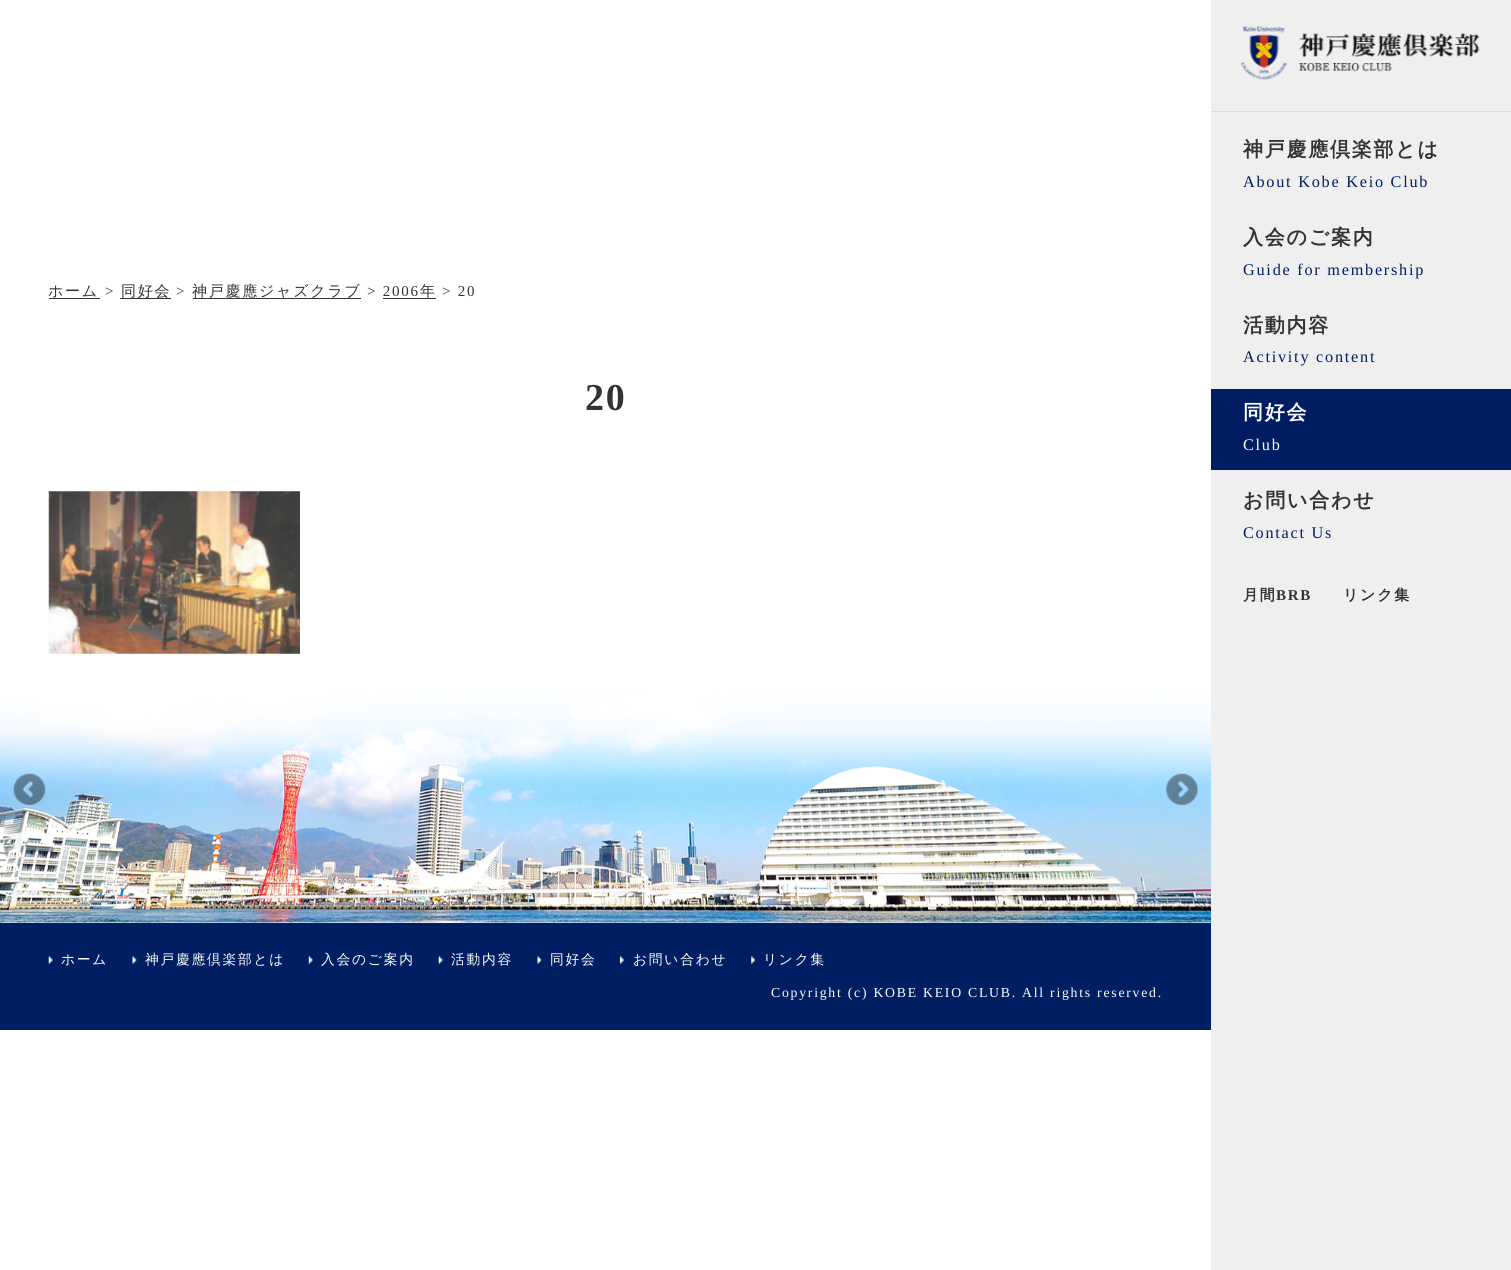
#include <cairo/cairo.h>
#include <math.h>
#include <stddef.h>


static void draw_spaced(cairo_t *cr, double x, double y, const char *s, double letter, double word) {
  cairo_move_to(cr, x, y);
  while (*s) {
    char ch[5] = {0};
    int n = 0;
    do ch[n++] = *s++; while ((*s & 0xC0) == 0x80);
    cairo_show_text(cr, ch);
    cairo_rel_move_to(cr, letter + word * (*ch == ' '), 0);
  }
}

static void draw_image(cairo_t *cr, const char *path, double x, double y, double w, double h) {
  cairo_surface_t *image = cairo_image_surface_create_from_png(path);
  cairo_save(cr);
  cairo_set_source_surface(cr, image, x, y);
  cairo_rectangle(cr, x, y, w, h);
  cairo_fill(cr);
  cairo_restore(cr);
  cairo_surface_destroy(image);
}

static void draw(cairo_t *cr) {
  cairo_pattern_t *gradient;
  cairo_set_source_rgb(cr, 1, 1, 1);
  cairo_paint(cr);
  cairo_set_source_rgb(cr, 51 / 255.0, 51 / 255.0, 51 / 255.0);
  cairo_rectangle(cr, 49, 298, 51, 1);
  cairo_fill(cr);
  cairo_rectangle(cr, 120, 298, 51, 1);
  cairo_fill(cr);
  cairo_rectangle(cr, 193, 298, 168, 1);
  cairo_fill(cr);
  cairo_rectangle(cr, 383, 298, 53, 1);
  cairo_fill(cr);
  draw_image(cr, "images/1.png", 48, 491, 252, 163);
  draw_image(cr, "images/2.png", 0, 678, 1211, 245);
  gradient = cairo_pattern_create_linear(606, 923, 606, 673);
  cairo_pattern_add_color_stop_rgba(gradient, 0.5, 1, 1, 1, 0);
  cairo_pattern_add_color_stop_rgba(gradient, 1, 1, 1, 1, 1);
  cairo_set_source(cr, gradient);
  cairo_pattern_destroy(gradient);
  cairo_rectangle(cr, 0, 678, 1211, 117);
  cairo_fill(cr);
  draw_image(cr, "images/3.png", 13, 773, 33, 33);
  draw_image(cr, "images/4.png", 1166, 773, 32, 33);
  cairo_set_source_rgb(cr, 0, 30 / 255.0, 98 / 255.0);
  cairo_rectangle(cr, 0, 923, 1211, 107);
  cairo_fill(cr);
  draw_image(cr, "images/5.png", 48, 956, 5, 8);
  draw_image(cr, "images/6.png", 132, 956, 5, 8);
  draw_image(cr, "images/5.png", 308, 956, 5, 8);
  draw_image(cr, "images/5.png", 438, 956, 5, 8);
  draw_image(cr, "images/6.png", 537, 956, 5, 8);
  draw_image(cr, "images/7.png", 620, 956, 4, 8);
  draw_image(cr, "images/8.png", 751, 956, 4, 8);
  cairo_set_source_rgb(cr, 239 / 255.0, 239 / 255.0, 239 / 255.0);
  cairo_rectangle(cr, 1211, 0, 300, 1270);
  cairo_fill(cr);
  draw_image(cr, "images/9.png", 1241, 26, 239, 54);
  cairo_set_source_rgb(cr, 221 / 255.0, 221 / 255.0, 221 / 255.0);
  cairo_rectangle(cr, 1211, 111, 300, 1);
  cairo_fill(cr);
  cairo_set_source_rgb(cr, 0, 29 / 255.0, 97 / 255.0);
  cairo_rectangle(cr, 1211, 389, 300, 81);
  cairo_fill(cr);
  cairo_select_font_face(cr, "WenQuanYi Zen Hei Medium", CAIRO_FONT_SLANT_NORMAL, CAIRO_FONT_WEIGHT_NORMAL);
  cairo_set_font_size(cr, 15);
  cairo_set_source_rgb(cr, 51 / 255.0, 51 / 255.0, 51 / 255.0);
  draw_spaced(cr, 48, 296, "ホーム", 1.75, 0);
  cairo_select_font_face(cr, "Liberation Serif", CAIRO_FONT_SLANT_NORMAL, CAIRO_FONT_WEIGHT_NORMAL);
  draw_spaced(cr, 105, 296, ">", 1.75, 0);
  cairo_select_font_face(cr, "WenQuanYi Zen Hei Medium", CAIRO_FONT_SLANT_NORMAL, CAIRO_FONT_WEIGHT_NORMAL);
  draw_spaced(cr, 121, 296, "同好会", 1.75, 0);
  cairo_select_font_face(cr, "Liberation Serif", CAIRO_FONT_SLANT_NORMAL, CAIRO_FONT_WEIGHT_NORMAL);
  draw_spaced(cr, 176, 296, ">", 1.75, 0);
  cairo_select_font_face(cr, "WenQuanYi Zen Hei Medium", CAIRO_FONT_SLANT_NORMAL, CAIRO_FONT_WEIGHT_NORMAL);
  draw_spaced(cr, 192, 296, "神戸慶應ジャズクラブ", 1.75, 0);
  cairo_select_font_face(cr, "Liberation Serif", CAIRO_FONT_SLANT_NORMAL, CAIRO_FONT_WEIGHT_NORMAL);
  draw_spaced(cr, 367, 296, "> 2006", 1.75, 0);
  cairo_select_font_face(cr, "WenQuanYi Zen Hei Medium", CAIRO_FONT_SLANT_NORMAL, CAIRO_FONT_WEIGHT_NORMAL);
  draw_spaced(cr, 420, 296, "年", 1.75, 0);
  cairo_select_font_face(cr, "Liberation Serif", CAIRO_FONT_SLANT_NORMAL, CAIRO_FONT_WEIGHT_NORMAL);
  draw_spaced(cr, 442, 296, "> 20", 1.75, 0);
  cairo_select_font_face(cr, "Liberation Serif", CAIRO_FONT_SLANT_NORMAL, CAIRO_FONT_WEIGHT_BOLD);
  cairo_set_font_size(cr, 38);
  draw_spaced(cr, 585, 410, "20", 1.75, 0);
  cairo_select_font_face(cr, "WenQuanYi Zen Hei Medium", CAIRO_FONT_SLANT_NORMAL, CAIRO_FONT_WEIGHT_NORMAL);
  cairo_set_font_size(cr, 13.75);
  cairo_set_source_rgb(cr, 1, 1, 1);
  draw_spaced(cr, 61, 964, "ホーム", 1.75, 0);
  draw_spaced(cr, 145, 964, "神戸慶應倶楽部とは", 1.75, 0);
  draw_spaced(cr, 321, 964, "入会のご案内", 1.75, 0);
  draw_spaced(cr, 451, 964, "活動内容", 1.75, 0);
  draw_spaced(cr, 550, 964, "同好会", 1.75, 0);
  draw_spaced(cr, 633, 964, "お問い合わせ", 1.75, 0);
  draw_spaced(cr, 763, 964, "リンク集", 1.75, 0);
  cairo_select_font_face(cr, "Liberation Serif", CAIRO_FONT_SLANT_NORMAL, CAIRO_FONT_WEIGHT_NORMAL);
  draw_spaced(cr, 771, 997, "Copyright (c) KOBE KEIO CLUB. All rights reserved.", 1.75, 0);
  cairo_select_font_face(cr, "WenQuanYi Zen Hei", CAIRO_FONT_SLANT_NORMAL, CAIRO_FONT_WEIGHT_BOLD);
  cairo_set_font_size(cr, 20);
  cairo_set_source_rgb(cr, 51 / 255.0, 51 / 255.0, 51 / 255.0);
  draw_spaced(cr, 1243, 156, "神戸慶應倶楽部とは", 1.75, 0);
  cairo_select_font_face(cr, "Liberation Serif", CAIRO_FONT_SLANT_NORMAL, CAIRO_FONT_WEIGHT_NORMAL);
  cairo_set_font_size(cr, 16.25);
  cairo_set_source_rgb(cr, 0, 29 / 255.0, 97 / 255.0);
  draw_spaced(cr, 1243, 187, "About Kobe Keio Club", 1.75, 0);
  cairo_select_font_face(cr, "WenQuanYi Zen Hei", CAIRO_FONT_SLANT_NORMAL, CAIRO_FONT_WEIGHT_BOLD);
  cairo_set_font_size(cr, 20);
  cairo_set_source_rgb(cr, 51 / 255.0, 51 / 255.0, 51 / 255.0);
  draw_spaced(cr, 1243, 244, "入会のご案内", 1.75, 0);
  cairo_select_font_face(cr, "Liberation Serif", CAIRO_FONT_SLANT_NORMAL, CAIRO_FONT_WEIGHT_NORMAL);
  cairo_set_font_size(cr, 16.25);
  cairo_set_source_rgb(cr, 0, 29 / 255.0, 97 / 255.0);
  draw_spaced(cr, 1243, 275, "Guide for membership", 1.75, 0);
  cairo_select_font_face(cr, "WenQuanYi Zen Hei", CAIRO_FONT_SLANT_NORMAL, CAIRO_FONT_WEIGHT_BOLD);
  cairo_set_font_size(cr, 20);
  cairo_set_source_rgb(cr, 51 / 255.0, 51 / 255.0, 51 / 255.0);
  draw_spaced(cr, 1243, 332, "活動内容", 1.75, 0);
  cairo_select_font_face(cr, "Liberation Serif", CAIRO_FONT_SLANT_NORMAL, CAIRO_FONT_WEIGHT_NORMAL);
  cairo_set_font_size(cr, 16.25);
  cairo_set_source_rgb(cr, 0, 29 / 255.0, 97 / 255.0);
  draw_spaced(cr, 1243, 362, "Activity content", 1.75, 0);
  cairo_select_font_face(cr, "WenQuanYi Zen Hei", CAIRO_FONT_SLANT_NORMAL, CAIRO_FONT_WEIGHT_BOLD);
  cairo_set_font_size(cr, 20);
  cairo_set_source_rgb(cr, 1, 1, 1);
  draw_spaced(cr, 1243, 419, "同好会", 1.75, 0);
  cairo_select_font_face(cr, "Liberation Serif", CAIRO_FONT_SLANT_NORMAL, CAIRO_FONT_WEIGHT_NORMAL);
  cairo_set_font_size(cr, 16.25);
  draw_spaced(cr, 1243, 450, "Club", 1.75, 0);
  cairo_select_font_face(cr, "WenQuanYi Zen Hei", CAIRO_FONT_SLANT_NORMAL, CAIRO_FONT_WEIGHT_BOLD);
  cairo_set_font_size(cr, 20);
  cairo_set_source_rgb(cr, 51 / 255.0, 51 / 255.0, 51 / 255.0);
  draw_spaced(cr, 1243, 507, "お問い合わせ", 1.75, 0);
  cairo_select_font_face(cr, "Liberation Serif", CAIRO_FONT_SLANT_NORMAL, CAIRO_FONT_WEIGHT_NORMAL);
  cairo_set_font_size(cr, 16.25);
  cairo_set_source_rgb(cr, 0, 29 / 255.0, 97 / 255.0);
  draw_spaced(cr, 1243, 538, "Contact Us", 1.75, 0);
  cairo_select_font_face(cr, "WenQuanYi Zen Hei", CAIRO_FONT_SLANT_NORMAL, CAIRO_FONT_WEIGHT_BOLD);
  cairo_set_font_size(cr, 15);
  cairo_set_source_rgb(cr, 51 / 255.0, 51 / 255.0, 51 / 255.0);
  draw_spaced(cr, 1243, 600, "月間", 1.75, 0);
  cairo_select_font_face(cr, "Liberation Serif", CAIRO_FONT_SLANT_NORMAL, CAIRO_FONT_WEIGHT_BOLD);
  draw_spaced(cr, 1276, 600, "BRB", 1.75, 0);
  cairo_select_font_face(cr, "WenQuanYi Zen Hei", CAIRO_FONT_SLANT_NORMAL, CAIRO_FONT_WEIGHT_BOLD);
  draw_spaced(cr, 1343, 600, "リンク集", 1.75, 0);
}

int main(void) {
  cairo_surface_t *surface = cairo_image_surface_create(CAIRO_FORMAT_RGB24, 1511, 1270);
  cairo_t *cr = cairo_create(surface);
  cairo_font_options_t *options = cairo_font_options_create();
  cairo_font_options_set_hint_metrics(options, CAIRO_HINT_METRICS_OFF);
  cairo_font_options_set_hint_style(options, CAIRO_HINT_STYLE_NONE);
  cairo_set_font_options(cr, options);
  cairo_set_miter_limit(cr, 4);
  draw(cr);
  cairo_surface_write_to_png(surface, "out.png");
  cairo_font_options_destroy(options);
  cairo_destroy(cr);
  cairo_surface_destroy(surface);
  return 0;
}
